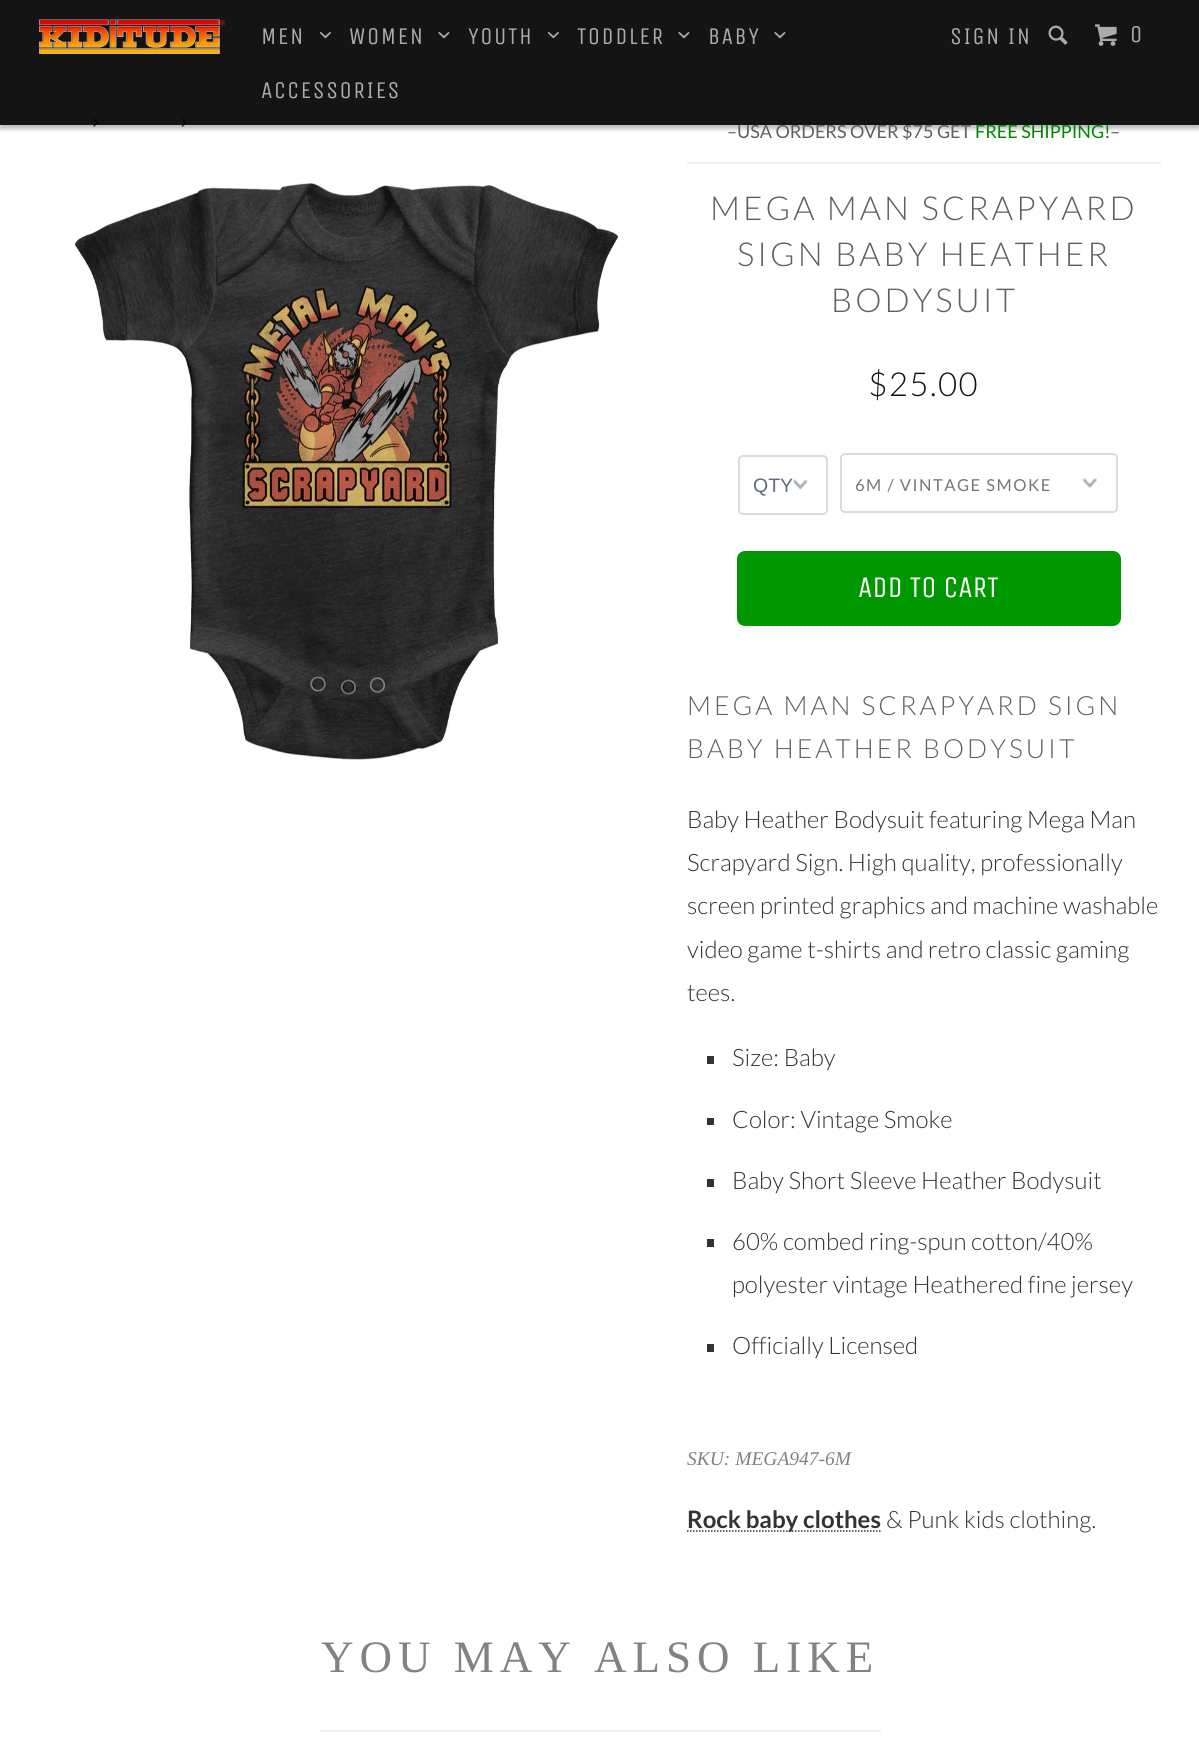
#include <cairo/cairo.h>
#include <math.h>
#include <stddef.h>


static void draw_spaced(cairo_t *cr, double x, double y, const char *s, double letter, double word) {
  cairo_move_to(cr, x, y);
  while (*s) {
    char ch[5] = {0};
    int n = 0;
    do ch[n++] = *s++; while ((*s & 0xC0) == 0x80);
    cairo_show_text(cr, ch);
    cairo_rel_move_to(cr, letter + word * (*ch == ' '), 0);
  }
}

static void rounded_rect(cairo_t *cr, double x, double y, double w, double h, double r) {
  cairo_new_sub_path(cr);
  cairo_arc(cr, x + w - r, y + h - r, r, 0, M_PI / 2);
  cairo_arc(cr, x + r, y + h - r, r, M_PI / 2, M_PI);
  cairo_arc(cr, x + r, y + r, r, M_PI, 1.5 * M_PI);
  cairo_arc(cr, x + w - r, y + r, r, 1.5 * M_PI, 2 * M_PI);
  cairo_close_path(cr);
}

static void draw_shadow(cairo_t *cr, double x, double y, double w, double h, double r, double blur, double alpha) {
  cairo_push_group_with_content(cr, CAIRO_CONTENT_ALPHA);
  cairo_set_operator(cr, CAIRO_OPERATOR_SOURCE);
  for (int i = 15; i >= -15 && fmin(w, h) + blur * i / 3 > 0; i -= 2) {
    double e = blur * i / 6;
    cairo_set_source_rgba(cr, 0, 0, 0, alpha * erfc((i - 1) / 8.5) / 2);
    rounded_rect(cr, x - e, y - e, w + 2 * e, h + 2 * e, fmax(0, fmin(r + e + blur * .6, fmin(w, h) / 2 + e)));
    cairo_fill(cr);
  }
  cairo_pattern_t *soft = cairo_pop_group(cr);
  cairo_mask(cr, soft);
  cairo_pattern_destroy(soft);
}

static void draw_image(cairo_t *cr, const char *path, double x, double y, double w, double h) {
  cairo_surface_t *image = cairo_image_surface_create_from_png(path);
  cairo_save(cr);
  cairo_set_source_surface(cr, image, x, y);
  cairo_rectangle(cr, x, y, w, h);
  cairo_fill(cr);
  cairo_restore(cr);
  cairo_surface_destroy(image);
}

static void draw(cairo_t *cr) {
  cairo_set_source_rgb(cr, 1, 1, 1);
  cairo_paint(cr);
  draw_image(cr, "images/6.png", 93, 118, 5, 9);
  draw_image(cr, "images/7.png", 181, 118, 6, 9);
  cairo_save(cr);
  cairo_set_fill_rule(cr, CAIRO_FILL_RULE_EVEN_ODD);
  cairo_new_path(cr);
  cairo_move_to(cr, 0, 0);
  cairo_line_to(cr, 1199, 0);
  cairo_line_to(cr, 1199, 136);
  cairo_line_to(cr, 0, 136);
  cairo_close_path(cr);
  cairo_move_to(cr, 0, 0);
  cairo_line_to(cr, 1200, 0);
  cairo_line_to(cr, 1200, 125);
  cairo_line_to(cr, 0, 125);
  cairo_close_path(cr);
  cairo_clip(cr);
  cairo_set_source_rgb(cr, 0, 0, 0);
  draw_shadow(cr, 0, 5, 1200, 124, 0, 2, 0.26);
  cairo_restore(cr);
  draw_image(cr, "images/8.png", 74, 183, 545, 577);
  cairo_set_source_rgb(cr, 239 / 255.0, 239 / 255.0, 239 / 255.0);
  cairo_rectangle(cr, 687, 162, 474, 2);
  cairo_fill(cr);
  draw_image(cr, "images/9.png", 793, 479, 15, 11);
  rounded_rect(cr, 739, 456, 88, 58, 4);
  cairo_set_source_rgb(cr, 217 / 255.0, 219 / 255.0, 220 / 255.0);
  cairo_stroke(cr);
  draw_image(cr, "images/10.png", 1082, 478, 15, 10);
  rounded_rect(cr, 841, 454, 276, 58, 4);
  cairo_stroke(cr);
  cairo_set_source_rgb(cr, 0, 152 / 255.0, 0);
  rounded_rect(cr, 737, 551, 384, 75, 8);
  cairo_fill(cr);
  cairo_set_source_rgb(cr, 51 / 255.0, 51 / 255.0, 51 / 255.0);
  cairo_rectangle(cr, 707, 1056, 7, 8);
  cairo_fill(cr);
  cairo_rectangle(cr, 707, 1118, 7, 7);
  cairo_fill(cr);
  cairo_rectangle(cr, 707, 1179, 7, 8);
  cairo_fill(cr);
  cairo_rectangle(cr, 707, 1239, 7, 8);
  cairo_fill(cr);
  cairo_rectangle(cr, 707, 1344, 7, 8);
  cairo_fill(cr);
  cairo_new_path(cr);
  cairo_move_to(cr, 687, 1531);
  cairo_line_to(cr, 881, 1531);
  cairo_set_line_width(cr, 1.5);
  cairo_set_dash(cr, (double[]){1.5, 1.5}, 2, 0);
  cairo_stroke(cr);
  cairo_set_source_rgb(cr, 239 / 255.0, 239 / 255.0, 239 / 255.0);
  cairo_rectangle(cr, 320, 1730, 561, 2);
  cairo_fill(cr);
  cairo_select_font_face(cr, "Lato", CAIRO_FONT_SLANT_NORMAL, CAIRO_FONT_WEIGHT_NORMAL);
  cairo_set_font_size(cr, 18);
  cairo_set_source_rgb(cr, 96 / 255.0, 96 / 255.0, 96 / 255.0);
  cairo_move_to(cr, 727, 138);
  cairo_show_text(cr, "–USA ORDERS OVER $75 GET");
  cairo_set_source_rgb(cr, 0, 136 / 255.0, 0);
  cairo_move_to(cr, 975, 138);
  cairo_show_text(cr, "FREE SHIPPING!");
  cairo_set_source_rgba(cr, 0, 0, 0, 0.92);
  cairo_rectangle(cr, 0, 0, 1199, 125);
  cairo_fill(cr);
  draw_image(cr, "images/3.png", 774, 32, 12, 7);
  cairo_select_font_face(cr, "Unica One", CAIRO_FONT_SLANT_NORMAL, CAIRO_FONT_WEIGHT_NORMAL);
  cairo_set_font_size(cr, 24);
  cairo_set_source_rgb(cr, 171 / 255.0, 171 / 255.0, 171 / 255.0);
  draw_spaced(cr, 708, 44, "BABY", 1.5, 0);
  draw_image(cr, "images/3.png", 678, 32, 12, 7);
  draw_spaced(cr, 577, 44, "TODDLER", 1.5, 0);
  draw_image(cr, "images/2.png", 547, 32, 12, 7);
  draw_spaced(cr, 468, 44, "YOUTH", 1.5, 0);
  draw_image(cr, "images/3.png", 438, 32, 12, 7);
  draw_spaced(cr, 349, 44, "WOMEN", 1.5, 0);
  draw_image(cr, "images/2.png", 319, 32, 12, 7);
  draw_spaced(cr, 261, 44, "MEN", 1.5, 0);
  draw_spaced(cr, 261, 98, "ACCESSORIES", 1.5, 0);
  draw_spaced(cr, 1130, 42, "0", 1.5, 0);
  draw_image(cr, "images/5.png", 1095, 24, 22, 22);
  draw_image(cr, "images/4.png", 1048, 25, 20, 20);
  draw_spaced(cr, 950, 44, "SIGN IN", 1.5, 0);
  draw_image(cr, "images/1.png", 39, 19, 186, 35);
  cairo_select_font_face(cr, "Lato", CAIRO_FONT_SLANT_NORMAL, CAIRO_FONT_WEIGHT_NORMAL);
  cairo_set_font_size(cr, 18);
  cairo_set_source_rgb(cr, 96 / 255.0, 96 / 255.0, 96 / 255.0);
  cairo_move_to(cr, 1110, 138);
  cairo_show_text(cr, "–");
  cairo_select_font_face(cr, "Lato Light", CAIRO_FONT_SLANT_NORMAL, CAIRO_FONT_WEIGHT_NORMAL);
  cairo_set_font_size(cr, 33);
  draw_spaced(cr, 710, 220, "MEGA MAN SCRAPYARD", 3, 0);
  draw_spaced(cr, 737, 266, "SIGN BABY HEATHER", 3, 0);
  draw_spaced(cr, 831, 312, "BODYSUIT", 3, 0);
  cairo_set_source_rgb(cr, 17 / 255.0, 17 / 255.0, 17 / 255.0);
  draw_spaced(cr, 868, 396, "$25.00", 1.5, 0);
  cairo_select_font_face(cr, "Liberation Sans", CAIRO_FONT_SLANT_NORMAL, CAIRO_FONT_WEIGHT_NORMAL);
  cairo_set_font_size(cr, 19.5);
  cairo_set_source_rgb(cr, 95 / 255.0, 106 / 255.0, 125 / 255.0);
  cairo_move_to(cr, 753, 492);
  cairo_show_text(cr, "QTY");
  cairo_select_font_face(cr, "Lato", CAIRO_FONT_SLANT_NORMAL, CAIRO_FONT_WEIGHT_NORMAL);
  cairo_set_font_size(cr, 16.5);
  cairo_set_source_rgb(cr, 119 / 255.0, 119 / 255.0, 119 / 255.0);
  draw_spaced(cr, 855, 491, "6M / VINTAGE SMOKE", 1.5, 0);
  cairo_select_font_face(cr, "Unica One", CAIRO_FONT_SLANT_NORMAL, CAIRO_FONT_WEIGHT_NORMAL);
  cairo_set_font_size(cr, 30);
  cairo_set_source_rgb(cr, 1, 1, 1);
  cairo_move_to(cr, 858, 597);
  cairo_show_text(cr, "ADD TO CART");
  cairo_select_font_face(cr, "Lato Light", CAIRO_FONT_SLANT_NORMAL, CAIRO_FONT_WEIGHT_NORMAL);
  cairo_set_font_size(cr, 26.4);
  cairo_set_source_rgb(cr, 96 / 255.0, 96 / 255.0, 96 / 255.0);
  draw_spaced(cr, 687, 715, "MEGA MAN SCRAPYARD SIGN", 3, 0);
  draw_spaced(cr, 687, 758, "BABY HEATHER BODYSUIT", 3, 0);
  cairo_set_font_size(cr, 24);
  cairo_set_source_rgb(cr, 51 / 255.0, 51 / 255.0, 51 / 255.0);
  cairo_move_to(cr, 687, 828);
  cairo_show_text(cr, "Baby Heather Bodysuit featuring Mega Man");
  cairo_move_to(cr, 687, 871);
  cairo_show_text(cr, "Scrapyard Sign. High quality, professionally");
  cairo_move_to(cr, 687, 914);
  cairo_show_text(cr, "screen printed graphics and machine washable");
  cairo_move_to(cr, 687, 958);
  cairo_show_text(cr, "video game t-shirts and retro classic gaming");
  cairo_move_to(cr, 687, 1001);
  cairo_show_text(cr, "tees.");
  cairo_move_to(cr, 732, 1066);
  cairo_show_text(cr, "Size: Baby");
  cairo_move_to(cr, 732, 1128);
  cairo_show_text(cr, "Color: Vintage Smoke");
  cairo_move_to(cr, 732, 1189);
  cairo_show_text(cr, "Baby Short Sleeve Heather Bodysuit");
  cairo_move_to(cr, 732, 1250);
  cairo_show_text(cr, "60% combed ring-spun cotton/40%");
  cairo_move_to(cr, 732, 1293);
  cairo_show_text(cr, "polyester vintage Heathered fine jersey");
  cairo_move_to(cr, 732, 1354);
  cairo_show_text(cr, "Officially Licensed");
  cairo_select_font_face(cr, "Liberation Serif", CAIRO_FONT_SLANT_ITALIC, CAIRO_FONT_WEIGHT_NORMAL);
  cairo_set_font_size(cr, 19.5);
  cairo_set_source_rgb(cr, 130 / 255.0, 130 / 255.0, 134 / 255.0);
  cairo_move_to(cr, 687, 1465);
  cairo_show_text(cr, "SKU: MEGA947-6M");
  cairo_select_font_face(cr, "Lato", CAIRO_FONT_SLANT_NORMAL, CAIRO_FONT_WEIGHT_BOLD);
  cairo_set_font_size(cr, 24);
  cairo_set_source_rgb(cr, 51 / 255.0, 51 / 255.0, 51 / 255.0);
  cairo_move_to(cr, 687, 1528);
  cairo_show_text(cr, "Rock baby clothes");
  cairo_select_font_face(cr, "Lato Light", CAIRO_FONT_SLANT_NORMAL, CAIRO_FONT_WEIGHT_NORMAL);
  cairo_move_to(cr, 886, 1528);
  cairo_show_text(cr, "& Punk kids clothing.");
  cairo_select_font_face(cr, "Liberation Serif", CAIRO_FONT_SLANT_NORMAL, CAIRO_FONT_WEIGHT_NORMAL);
  cairo_set_font_size(cr, 45);
  cairo_set_source_rgb(cr, 130 / 255.0, 130 / 255.0, 134 / 255.0);
  draw_spaced(cr, 321, 1672, "YOU MAY ALSO LIKE", 6, 0);
}

int main(void) {
  cairo_surface_t *surface = cairo_image_surface_create(CAIRO_FORMAT_RGB24, 1199, 1748);
  cairo_t *cr = cairo_create(surface);
  cairo_font_options_t *options = cairo_font_options_create();
  cairo_font_options_set_hint_metrics(options, CAIRO_HINT_METRICS_OFF);
  cairo_font_options_set_hint_style(options, CAIRO_HINT_STYLE_NONE);
  cairo_set_font_options(cr, options);
  cairo_set_miter_limit(cr, 4);
  draw(cr);
  cairo_surface_write_to_png(surface, "out.png");
  cairo_font_options_destroy(options);
  cairo_destroy(cr);
  cairo_surface_destroy(surface);
  return 0;
}
